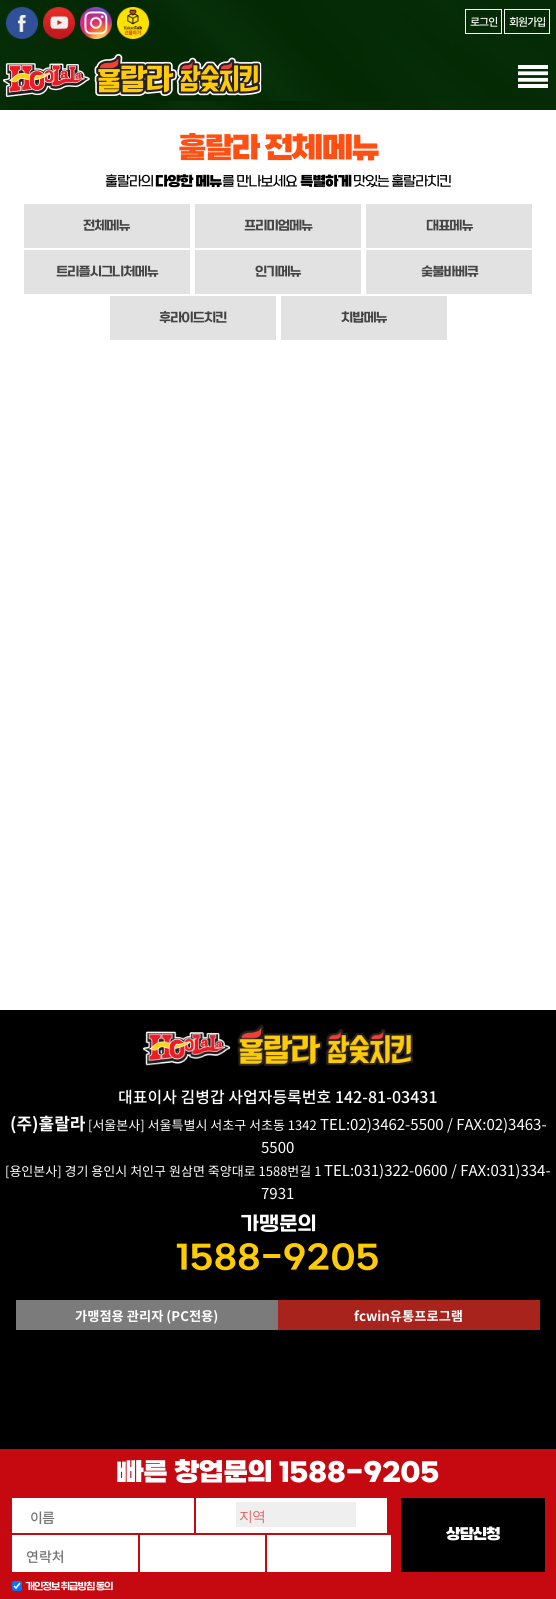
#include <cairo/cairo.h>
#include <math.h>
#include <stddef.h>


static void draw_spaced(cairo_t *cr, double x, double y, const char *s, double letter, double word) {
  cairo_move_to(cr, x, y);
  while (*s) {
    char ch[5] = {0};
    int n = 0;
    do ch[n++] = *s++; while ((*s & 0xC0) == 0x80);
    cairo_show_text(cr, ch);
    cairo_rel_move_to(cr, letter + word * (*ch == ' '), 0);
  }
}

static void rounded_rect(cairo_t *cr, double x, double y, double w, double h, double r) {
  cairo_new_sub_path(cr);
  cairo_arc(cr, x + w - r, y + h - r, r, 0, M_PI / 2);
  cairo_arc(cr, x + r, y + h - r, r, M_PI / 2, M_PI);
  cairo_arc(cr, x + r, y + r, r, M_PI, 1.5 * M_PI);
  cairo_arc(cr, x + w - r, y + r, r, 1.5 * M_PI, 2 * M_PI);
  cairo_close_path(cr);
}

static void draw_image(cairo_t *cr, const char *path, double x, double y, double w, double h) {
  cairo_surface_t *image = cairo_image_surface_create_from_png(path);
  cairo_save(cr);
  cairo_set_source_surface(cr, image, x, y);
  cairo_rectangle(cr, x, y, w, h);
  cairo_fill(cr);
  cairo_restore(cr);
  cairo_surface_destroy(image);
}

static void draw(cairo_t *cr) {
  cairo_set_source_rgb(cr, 1, 1, 1);
  cairo_paint(cr);
  draw_image(cr, "images/1.png", 0, 0, 556, 110);
  draw_image(cr, "images/2.png", 6, 7, 32, 32);
  draw_image(cr, "images/3.png", 43, 7, 32, 32);
  draw_image(cr, "images/4.png", 80, 7, 32, 32);
  draw_image(cr, "images/5.png", 117, 7, 32, 32);
  cairo_rectangle(cr, 465.5, 9.5, 36, 24);
  cairo_set_source_rgb(cr, 1, 1, 1);
  cairo_set_line_width(cr, 1);
  cairo_stroke(cr);
  cairo_rectangle(cr, 504.5, 9.5, 45, 24);
  cairo_stroke(cr);
  draw_image(cr, "images/6.png", 3, 54, 259, 43);
  draw_image(cr, "images/7.png", 518, 65, 30, 23);
  cairo_set_source_rgb(cr, 226 / 255.0, 226 / 255.0, 226 / 255.0);
  cairo_rectangle(cr, 24, 204, 166, 44);
  cairo_fill(cr);
  cairo_rectangle(cr, 195, 204, 166, 44);
  cairo_fill(cr);
  cairo_rectangle(cr, 366, 204, 166, 44);
  cairo_fill(cr);
  cairo_rectangle(cr, 24, 250, 166, 44);
  cairo_fill(cr);
  cairo_rectangle(cr, 195, 250, 166, 44);
  cairo_fill(cr);
  cairo_rectangle(cr, 366, 250, 166, 44);
  cairo_fill(cr);
  cairo_rectangle(cr, 110, 296, 166, 44);
  cairo_fill(cr);
  cairo_rectangle(cr, 281, 296, 166, 44);
  cairo_fill(cr);
  cairo_set_source_rgb(cr, 0, 0, 0);
  cairo_rectangle(cr, 0, 1010, 556, 439);
  cairo_fill(cr);
  draw_image(cr, "images/8.png", 143, 1025, 270, 41);
  cairo_set_source_rgb(cr, 123 / 255.0, 123 / 255.0, 123 / 255.0);
  cairo_rectangle(cr, 16, 1300, 262, 30);
  cairo_fill(cr);
  cairo_set_source_rgb(cr, 167 / 255.0, 35 / 255.0, 27 / 255.0);
  cairo_rectangle(cr, 278, 1300, 262, 30);
  cairo_fill(cr);
  cairo_set_source_rgb(cr, 198 / 255.0, 9 / 255.0, 17 / 255.0);
  cairo_rectangle(cr, 0, 1449, 556, 150);
  cairo_fill(cr);
  cairo_set_source_rgb(cr, 1, 1, 1);
  cairo_rectangle(cr, 12, 1498, 182, 35);
  cairo_fill(cr);
  cairo_rectangle(cr, 196, 1498, 191, 35);
  cairo_fill(cr);
  cairo_set_source_rgb(cr, 239 / 255.0, 239 / 255.0, 239 / 255.0);
  cairo_rectangle(cr, 236, 1502, 120, 25);
  cairo_fill(cr);
  cairo_set_source_rgb(cr, 0, 0, 0);
  cairo_rectangle(cr, 401, 1498, 144, 74);
  cairo_fill(cr);
  cairo_set_source_rgb(cr, 1, 1, 1);
  cairo_rectangle(cr, 12, 1535, 126, 37);
  cairo_fill(cr);
  cairo_rectangle(cr, 140, 1535, 125, 37);
  cairo_fill(cr);
  cairo_rectangle(cr, 267, 1535, 124, 37);
  cairo_fill(cr);
  cairo_set_source_rgb(cr, 0, 117 / 255.0, 1);
  rounded_rect(cr, 12, 1581, 10, 10, 2);
  cairo_fill(cr);
  cairo_new_path(cr);
  cairo_move_to(cr, 14, 1586);
  cairo_line_to(cr, 16, 1588);
  cairo_line_to(cr, 20, 1583);
  cairo_set_source_rgb(cr, 1, 1, 1);
  cairo_set_line_width(cr, 1.6);
  cairo_stroke(cr);
  cairo_select_font_face(cr, "Noto Sans KR Medium", CAIRO_FONT_SLANT_NORMAL, CAIRO_FONT_WEIGHT_NORMAL);
  cairo_set_font_size(cr, 11);
  draw_spaced(cr, 470, 26, "로그인", -1, 0);
  draw_spaced(cr, 509, 26, "회원가입", -1, 0);
  cairo_select_font_face(cr, "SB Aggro", CAIRO_FONT_SLANT_NORMAL, CAIRO_FONT_WEIGHT_NORMAL);
  cairo_set_font_size(cr, 30);
  cairo_set_source_rgb(cr, 1, 79 / 255.0, 18 / 255.0);
  draw_spaced(cr, 178, 156, "훌랄라 전체메뉴", -2, 0);
  cairo_select_font_face(cr, "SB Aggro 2", CAIRO_FONT_SLANT_NORMAL, CAIRO_FONT_WEIGHT_NORMAL);
  cairo_set_font_size(cr, 14);
  cairo_set_source_rgb(cr, 0, 0, 0);
  draw_spaced(cr, 105, 185, "훌랄라의", -1, 0);
  cairo_select_font_face(cr, "SB Aggro", CAIRO_FONT_SLANT_NORMAL, CAIRO_FONT_WEIGHT_NORMAL);
  draw_spaced(cr, 155, 185, "다양한 메뉴", -1, 0);
  cairo_select_font_face(cr, "SB Aggro 2", CAIRO_FONT_SLANT_NORMAL, CAIRO_FONT_WEIGHT_NORMAL);
  draw_spaced(cr, 222, 185, "를 만나보세요", -1, 0);
  cairo_select_font_face(cr, "SB Aggro", CAIRO_FONT_SLANT_NORMAL, CAIRO_FONT_WEIGHT_NORMAL);
  draw_spaced(cr, 300, 185, "특별하게", -1, 0);
  cairo_select_font_face(cr, "SB Aggro 2", CAIRO_FONT_SLANT_NORMAL, CAIRO_FONT_WEIGHT_NORMAL);
  draw_spaced(cr, 353, 185, "맛있는 훌랄라치킨", -1, 0);
  cairo_select_font_face(cr, "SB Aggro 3", CAIRO_FONT_SLANT_NORMAL, CAIRO_FONT_WEIGHT_NORMAL);
  cairo_set_font_size(cr, 13);
  cairo_set_source_rgb(cr, 68 / 255.0, 68 / 255.0, 68 / 255.0);
  draw_spaced(cr, 83, 229, "전체메뉴", -1, 0);
  draw_spaced(cr, 244, 229, "프리미엄메뉴", -1, 0);
  draw_spaced(cr, 426, 229, "대표메뉴", -1, 0);
  draw_spaced(cr, 56, 275, "트리플시그니처메뉴", -1, 0);
  draw_spaced(cr, 255, 275, "인기메뉴", -1, 0);
  draw_spaced(cr, 421, 275, "숯불바베큐", -1, 0);
  draw_spaced(cr, 159, 321, "후라이드치킨", -1, 0);
  draw_spaced(cr, 341, 321, "치밥메뉴", -1, 0);
  cairo_select_font_face(cr, "Noto Sans KR Medium", CAIRO_FONT_SLANT_NORMAL, CAIRO_FONT_WEIGHT_NORMAL);
  cairo_set_font_size(cr, 16);
  cairo_set_source_rgb(cr, 1, 1, 1);
  cairo_move_to(cr, 118, 1103);
  cairo_show_text(cr, "대표이사 김병갑 사업자등록번호 142-81-03431");
  cairo_select_font_face(cr, "Noto Sans KR", CAIRO_FONT_SLANT_NORMAL, CAIRO_FONT_WEIGHT_BOLD);
  cairo_set_font_size(cr, 17);
  cairo_move_to(cr, 10, 1130);
  cairo_show_text(cr, "(주)훌랄라");
  cairo_select_font_face(cr, "Noto Sans KR", CAIRO_FONT_SLANT_NORMAL, CAIRO_FONT_WEIGHT_NORMAL);
  cairo_set_font_size(cr, 13);
  cairo_move_to(cr, 88, 1130);
  cairo_show_text(cr, "[서울본사] 서울특별시 서초구 서초동 1342");
  cairo_set_font_size(cr, 15);
  cairo_move_to(cr, 320, 1130);
  cairo_show_text(cr, "TEL:02)3462-5500 / FAX:02)3463-");
  cairo_move_to(cr, 261, 1153);
  cairo_show_text(cr, "5500");
  cairo_set_font_size(cr, 13);
  cairo_move_to(cr, 5, 1176);
  cairo_show_text(cr, "[용인본사] 경기 용인시 처인구 원삼면 죽양대로 1588번길 1");
  cairo_set_font_size(cr, 15);
  cairo_move_to(cr, 324, 1176);
  cairo_show_text(cr, "TEL:031)322-0600 / FAX:031)334-");
  cairo_move_to(cr, 261, 1199);
  cairo_show_text(cr, "7931");
  cairo_select_font_face(cr, "SB Aggro 3", CAIRO_FONT_SLANT_NORMAL, CAIRO_FONT_WEIGHT_NORMAL);
  cairo_set_font_size(cr, 20);
  cairo_move_to(cr, 240, 1229);
  cairo_show_text(cr, "가맹문의");
  cairo_set_font_size(cr, 33);
  cairo_set_source_rgb(cr, 1, 203 / 255.0, 2 / 255.0);
  cairo_move_to(cr, 176, 1266);
  cairo_show_text(cr, "1588-9205");
  cairo_select_font_face(cr, "Noto Sans KR", CAIRO_FONT_SLANT_NORMAL, CAIRO_FONT_WEIGHT_BOLD);
  cairo_set_font_size(cr, 13.25);
  cairo_set_source_rgb(cr, 1, 1, 1);
  cairo_move_to(cr, 75, 1321);
  cairo_show_text(cr, "가맹점용 관리자 (PC전용)");
  cairo_move_to(cr, 354, 1321);
  cairo_show_text(cr, "fcwin유통프로그램");
  cairo_select_font_face(cr, "SB Aggro", CAIRO_FONT_SLANT_NORMAL, CAIRO_FONT_WEIGHT_NORMAL);
  cairo_set_font_size(cr, 26);
  draw_spaced(cr, 116, 1479, "빠른 창업문의 1588-9205", -0.5, 0);
  cairo_select_font_face(cr, "Noto Sans KR Medium", CAIRO_FONT_SLANT_NORMAL, CAIRO_FONT_WEIGHT_NORMAL);
  cairo_set_font_size(cr, 14);
  cairo_set_source_rgb(cr, 117 / 255.0, 117 / 255.0, 117 / 255.0);
  draw_spaced(cr, 30, 1523, "이름", -1, 0);
  cairo_select_font_face(cr, "WenQuanYi Zen Hei Medium", CAIRO_FONT_SLANT_NORMAL, CAIRO_FONT_WEIGHT_NORMAL);
  cairo_set_source_rgb(cr, 230 / 255.0, 93 / 255.0, 93 / 255.0);
  draw_spaced(cr, 239, 1521, "지역", -1, 0);
  cairo_select_font_face(cr, "SB Aggro", CAIRO_FONT_SLANT_NORMAL, CAIRO_FONT_WEIGHT_NORMAL);
  cairo_set_font_size(cr, 15);
  cairo_set_source_rgb(cr, 1, 1, 1);
  draw_spaced(cr, 446, 1538, "상담신청", -1, 0);
  cairo_select_font_face(cr, "Noto Sans KR Medium", CAIRO_FONT_SLANT_NORMAL, CAIRO_FONT_WEIGHT_NORMAL);
  cairo_set_font_size(cr, 14);
  cairo_set_source_rgb(cr, 117 / 255.0, 117 / 255.0, 117 / 255.0);
  cairo_move_to(cr, 26, 1562);
  cairo_show_text(cr, "연락처");
  cairo_select_font_face(cr, "SB Aggro 3", CAIRO_FONT_SLANT_NORMAL, CAIRO_FONT_WEIGHT_NORMAL);
  cairo_set_font_size(cr, 10);
  cairo_set_source_rgb(cr, 1, 1, 1);
  draw_spaced(cr, 25, 1589, "개인정보 취급방침 동의", -1, 0);
}

int main(void) {
  cairo_surface_t *surface = cairo_image_surface_create(CAIRO_FORMAT_RGB24, 556, 1599);
  cairo_t *cr = cairo_create(surface);
  cairo_font_options_t *options = cairo_font_options_create();
  cairo_font_options_set_hint_metrics(options, CAIRO_HINT_METRICS_OFF);
  cairo_font_options_set_hint_style(options, CAIRO_HINT_STYLE_NONE);
  cairo_set_font_options(cr, options);
  cairo_set_miter_limit(cr, 4);
  draw(cr);
  cairo_surface_write_to_png(surface, "out.png");
  cairo_font_options_destroy(options);
  cairo_destroy(cr);
  cairo_surface_destroy(surface);
  return 0;
}
